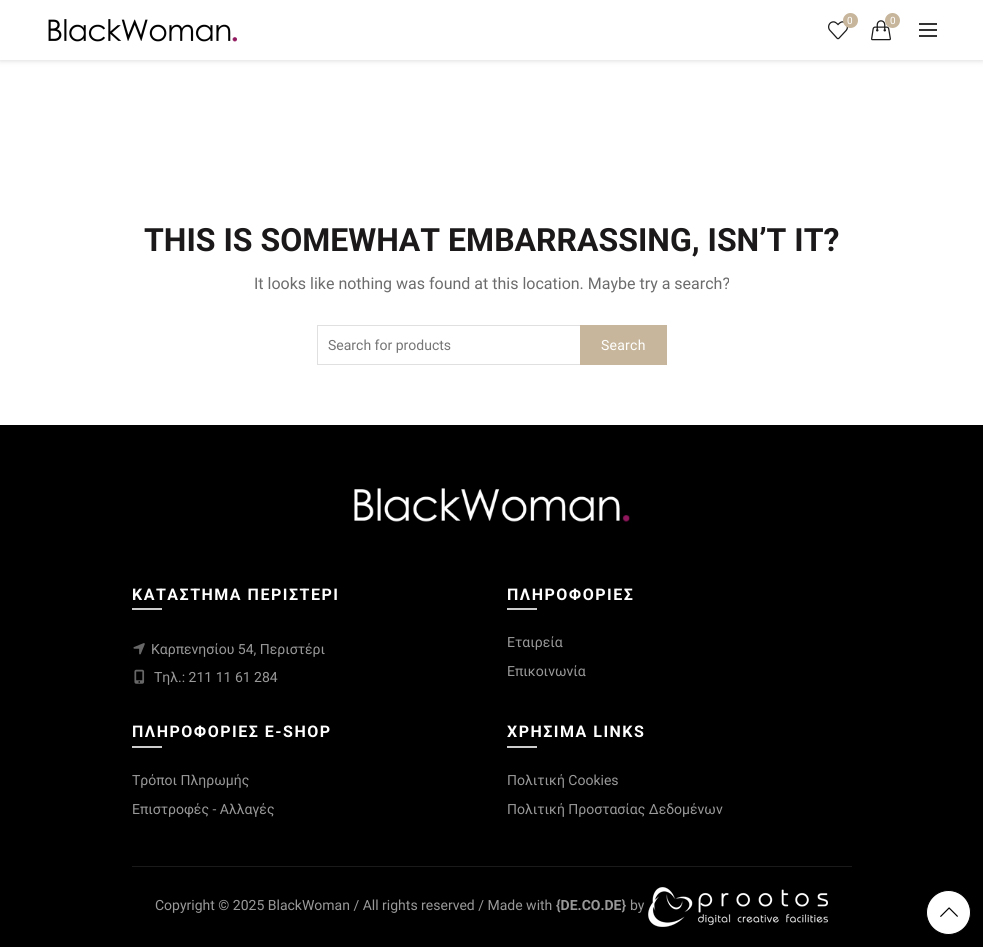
#include <cairo/cairo.h>
#include <math.h>
#include <stddef.h>


static void draw_spaced(cairo_t *cr, double x, double y, const char *s, double letter, double word) {
  cairo_move_to(cr, x, y);
  while (*s) {
    char ch[5] = {0};
    int n = 0;
    do ch[n++] = *s++; while ((*s & 0xC0) == 0x80);
    cairo_show_text(cr, ch);
    cairo_rel_move_to(cr, letter + word * (*ch == ' '), 0);
  }
}

static void rounded_rect(cairo_t *cr, double x, double y, double w, double h, double r) {
  cairo_new_sub_path(cr);
  cairo_arc(cr, x + w - r, y + h - r, r, 0, M_PI / 2);
  cairo_arc(cr, x + r, y + h - r, r, M_PI / 2, M_PI);
  cairo_arc(cr, x + r, y + r, r, M_PI, 1.5 * M_PI);
  cairo_arc(cr, x + w - r, y + r, r, 1.5 * M_PI, 2 * M_PI);
  cairo_close_path(cr);
}

static void draw_shadow(cairo_t *cr, double x, double y, double w, double h, double r, double blur, double alpha) {
  cairo_push_group_with_content(cr, CAIRO_CONTENT_ALPHA);
  cairo_set_operator(cr, CAIRO_OPERATOR_SOURCE);
  for (int i = 15; i >= -15 && fmin(w, h) + blur * i / 3 > 0; i -= 2) {
    double e = blur * i / 6;
    cairo_set_source_rgba(cr, 0, 0, 0, alpha * erfc((i - 1) / 8.5) / 2);
    rounded_rect(cr, x - e, y - e, w + 2 * e, h + 2 * e, fmax(0, fmin(r + e + blur * .6, fmin(w, h) / 2 + e)));
    cairo_fill(cr);
  }
  cairo_pattern_t *soft = cairo_pop_group(cr);
  cairo_mask(cr, soft);
  cairo_pattern_destroy(soft);
}

static void draw_image(cairo_t *cr, const char *path, double x, double y, double w, double h) {
  cairo_surface_t *image = cairo_image_surface_create_from_png(path);
  cairo_save(cr);
  cairo_set_source_surface(cr, image, x, y);
  cairo_rectangle(cr, x, y, w, h);
  cairo_fill(cr);
  cairo_restore(cr);
  cairo_surface_destroy(image);
}

static void draw(cairo_t *cr) {
  cairo_set_source_rgb(cr, 1, 1, 1);
  cairo_paint(cr);
  cairo_set_source_rgb(cr, 190 / 255.0, 190 / 255.0, 190 / 255.0);
  draw_shadow(cr, 0, 1, 983, 60, 0, 2.5, 0.5);
  cairo_set_source_rgb(cr, 1, 1, 1);
  cairo_rectangle(cr, 0, 0, 983, 60);
  cairo_fill(cr);
  draw_image(cr, "images/1.png", 48, 19, 189, 23);
  draw_image(cr, "images/2.png", 828, 21, 20, 19);
  cairo_set_source_rgb(cr, 199 / 255.0, 182 / 255.0, 155 / 255.0);
  cairo_arc(cr, 850.5, 20.5, 7.5, 0, 2 * M_PI);
  cairo_fill(cr);
  draw_image(cr, "images/3.png", 871, 20, 20, 21);
  cairo_arc(cr, 892.5, 20.5, 7.5, 0, 2 * M_PI);
  cairo_fill(cr);
  cairo_set_source_rgb(cr, 51 / 255.0, 51 / 255.0, 51 / 255.0);
  cairo_rectangle(cr, 919, 29, 18, 2);
  cairo_fill(cr);
  cairo_rectangle(cr, 919, 23, 18, 2);
  cairo_fill(cr);
  cairo_rectangle(cr, 919, 35, 18, 2);
  cairo_fill(cr);
  cairo_rectangle(cr, 317.5, 325.5, 349, 39);
  cairo_set_source_rgb(cr, 224 / 255.0, 224 / 255.0, 224 / 255.0);
  cairo_set_line_width(cr, 1);
  cairo_stroke(cr);
  cairo_set_source_rgb(cr, 199 / 255.0, 182 / 255.0, 155 / 255.0);
  cairo_rectangle(cr, 580, 325, 87, 40);
  cairo_fill(cr);
  cairo_set_source_rgb(cr, 0, 0, 0);
  cairo_rectangle(cr, 0, 425, 983, 522);
  cairo_fill(cr);
  draw_image(cr, "images/4.png", 354, 488, 276, 34);
  cairo_set_source_rgb(cr, 204 / 255.0, 204 / 255.0, 204 / 255.0);
  cairo_rectangle(cr, 132, 608, 30, 2);
  cairo_fill(cr);
  draw_image(cr, "images/5.png", 133, 643, 12, 12);
  draw_image(cr, "images/6.png", 134, 669, 11, 15);
  cairo_rectangle(cr, 507, 608, 30, 2);
  cairo_fill(cr);
  cairo_rectangle(cr, 132, 746, 30, 2);
  cairo_fill(cr);
  cairo_rectangle(cr, 507, 746, 30, 2);
  cairo_fill(cr);
  cairo_set_source_rgb(cr, 26 / 255.0, 26 / 255.0, 26 / 255.0);
  cairo_rectangle(cr, 132, 866, 720, 1);
  cairo_fill(cr);
  draw_image(cr, "images/7.png", 648, 887, 180, 40);
  cairo_set_source_rgb(cr, 1, 1, 1);
  cairo_arc(cr, 948.5, 912.5, 22, 0, 2 * M_PI);
  cairo_fill_preserve(cr);
  cairo_set_source_rgb(cr, 0, 0, 0);
  cairo_stroke(cr);
  draw_image(cr, "images/8.png", 940, 907, 18, 10);
  cairo_select_font_face(cr, "Roboto", CAIRO_FONT_SLANT_NORMAL, CAIRO_FONT_WEIGHT_NORMAL);
  cairo_set_font_size(cr, 10);
  cairo_set_source_rgb(cr, 1, 1, 1);
  cairo_move_to(cr, 847, 24);
  cairo_show_text(cr, "0");
  cairo_move_to(cr, 890, 24);
  cairo_show_text(cr, "0");
  cairo_select_font_face(cr, "Roboto", CAIRO_FONT_SLANT_NORMAL, CAIRO_FONT_WEIGHT_BOLD);
  cairo_set_font_size(cr, 32);
  cairo_set_source_rgb(cr, 27 / 255.0, 25 / 255.0, 25 / 255.0);
  cairo_move_to(cr, 144, 251);
  cairo_show_text(cr, "THIS IS SOMEWHAT EMBARRASSING, ISN’T IT?");
  cairo_select_font_face(cr, "Roboto", CAIRO_FONT_SLANT_NORMAL, CAIRO_FONT_WEIGHT_NORMAL);
  cairo_set_font_size(cr, 16);
  cairo_set_source_rgb(cr, 108 / 255.0, 108 / 255.0, 108 / 255.0);
  cairo_move_to(cr, 254, 289);
  cairo_show_text(cr, "It looks like nothing was found at this location. Maybe try a search?");
  cairo_set_font_size(cr, 14);
  cairo_set_source_rgb(cr, 117 / 255.0, 117 / 255.0, 117 / 255.0);
  cairo_move_to(cr, 328, 350);
  cairo_show_text(cr, "Search for products");
  cairo_set_source_rgb(cr, 1, 1, 1);
  draw_spaced(cr, 601, 350, "Search", 0.25, 0);
  cairo_select_font_face(cr, "Roboto", CAIRO_FONT_SLANT_NORMAL, CAIRO_FONT_WEIGHT_BOLD);
  cairo_set_font_size(cr, 16);
  draw_spaced(cr, 132, 600, "ΚΑΤΑΣΤΗΜΑ ΠΕΡΙΣΤΕΡΙ", 1.5, 0);
  cairo_select_font_face(cr, "Roboto", CAIRO_FONT_SLANT_NORMAL, CAIRO_FONT_WEIGHT_NORMAL);
  cairo_set_font_size(cr, 14);
  cairo_set_source_rgb(cr, 153 / 255.0, 153 / 255.0, 153 / 255.0);
  cairo_move_to(cr, 151, 654);
  cairo_show_text(cr, "Καρπενησίου 54, Περιστέρι");
  cairo_move_to(cr, 154, 682);
  cairo_show_text(cr, "Τηλ.: 211 11 61 284");
  cairo_select_font_face(cr, "Roboto", CAIRO_FONT_SLANT_NORMAL, CAIRO_FONT_WEIGHT_BOLD);
  cairo_set_font_size(cr, 16);
  cairo_set_source_rgb(cr, 1, 1, 1);
  draw_spaced(cr, 507, 600, "ΠΛΗΡΟΦΟΡΙΕΣ", 1.5, 0);
  cairo_select_font_face(cr, "Roboto", CAIRO_FONT_SLANT_NORMAL, CAIRO_FONT_WEIGHT_NORMAL);
  cairo_set_font_size(cr, 14);
  cairo_set_source_rgb(cr, 153 / 255.0, 153 / 255.0, 153 / 255.0);
  cairo_move_to(cr, 507, 647);
  cairo_show_text(cr, "Εταιρεία");
  cairo_move_to(cr, 507, 676);
  cairo_show_text(cr, "Επικοινωνία");
  cairo_select_font_face(cr, "Roboto", CAIRO_FONT_SLANT_NORMAL, CAIRO_FONT_WEIGHT_BOLD);
  cairo_set_font_size(cr, 16);
  cairo_set_source_rgb(cr, 1, 1, 1);
  draw_spaced(cr, 132, 737, "ΠΛΗΡΟΦΟΡΙΕΣ E-SHOP", 1.5, 0);
  cairo_select_font_face(cr, "Roboto", CAIRO_FONT_SLANT_NORMAL, CAIRO_FONT_WEIGHT_NORMAL);
  cairo_set_font_size(cr, 14);
  cairo_set_source_rgb(cr, 153 / 255.0, 153 / 255.0, 153 / 255.0);
  cairo_move_to(cr, 132, 785);
  cairo_show_text(cr, "Τρόποι Πληρωμής");
  cairo_move_to(cr, 132, 814);
  cairo_show_text(cr, "Επιστροφές - Αλλαγές");
  cairo_select_font_face(cr, "Roboto", CAIRO_FONT_SLANT_NORMAL, CAIRO_FONT_WEIGHT_BOLD);
  cairo_set_font_size(cr, 16);
  cairo_set_source_rgb(cr, 1, 1, 1);
  draw_spaced(cr, 507, 737, "ΧΡΗΣΙΜΑ LINKS", 1.5, 0);
  cairo_select_font_face(cr, "Roboto", CAIRO_FONT_SLANT_NORMAL, CAIRO_FONT_WEIGHT_NORMAL);
  cairo_set_font_size(cr, 14);
  cairo_set_source_rgb(cr, 153 / 255.0, 153 / 255.0, 153 / 255.0);
  cairo_move_to(cr, 507, 785);
  cairo_show_text(cr, "Πολιτική Cookies");
  cairo_move_to(cr, 507, 814);
  cairo_show_text(cr, "Πολιτική Προστασίας Δεδομένων");
  cairo_move_to(cr, 155, 910);
  cairo_show_text(cr, "Copyright © 2025 BlackWoman / All rights reserved / Made with");
  cairo_select_font_face(cr, "Roboto", CAIRO_FONT_SLANT_NORMAL, CAIRO_FONT_WEIGHT_BOLD);
  cairo_move_to(cr, 556, 910);
  cairo_show_text(cr, "{DE.CO.DE}");
  cairo_select_font_face(cr, "Roboto", CAIRO_FONT_SLANT_NORMAL, CAIRO_FONT_WEIGHT_NORMAL);
  cairo_move_to(cr, 630, 910);
  cairo_show_text(cr, "by");
}

int main(void) {
  cairo_surface_t *surface = cairo_image_surface_create(CAIRO_FORMAT_RGB24, 983, 947);
  cairo_t *cr = cairo_create(surface);
  cairo_font_options_t *options = cairo_font_options_create();
  cairo_font_options_set_hint_metrics(options, CAIRO_HINT_METRICS_OFF);
  cairo_font_options_set_hint_style(options, CAIRO_HINT_STYLE_NONE);
  cairo_set_font_options(cr, options);
  cairo_set_miter_limit(cr, 4);
  draw(cr);
  cairo_surface_write_to_png(surface, "out.png");
  cairo_font_options_destroy(options);
  cairo_destroy(cr);
  cairo_surface_destroy(surface);
  return 0;
}
